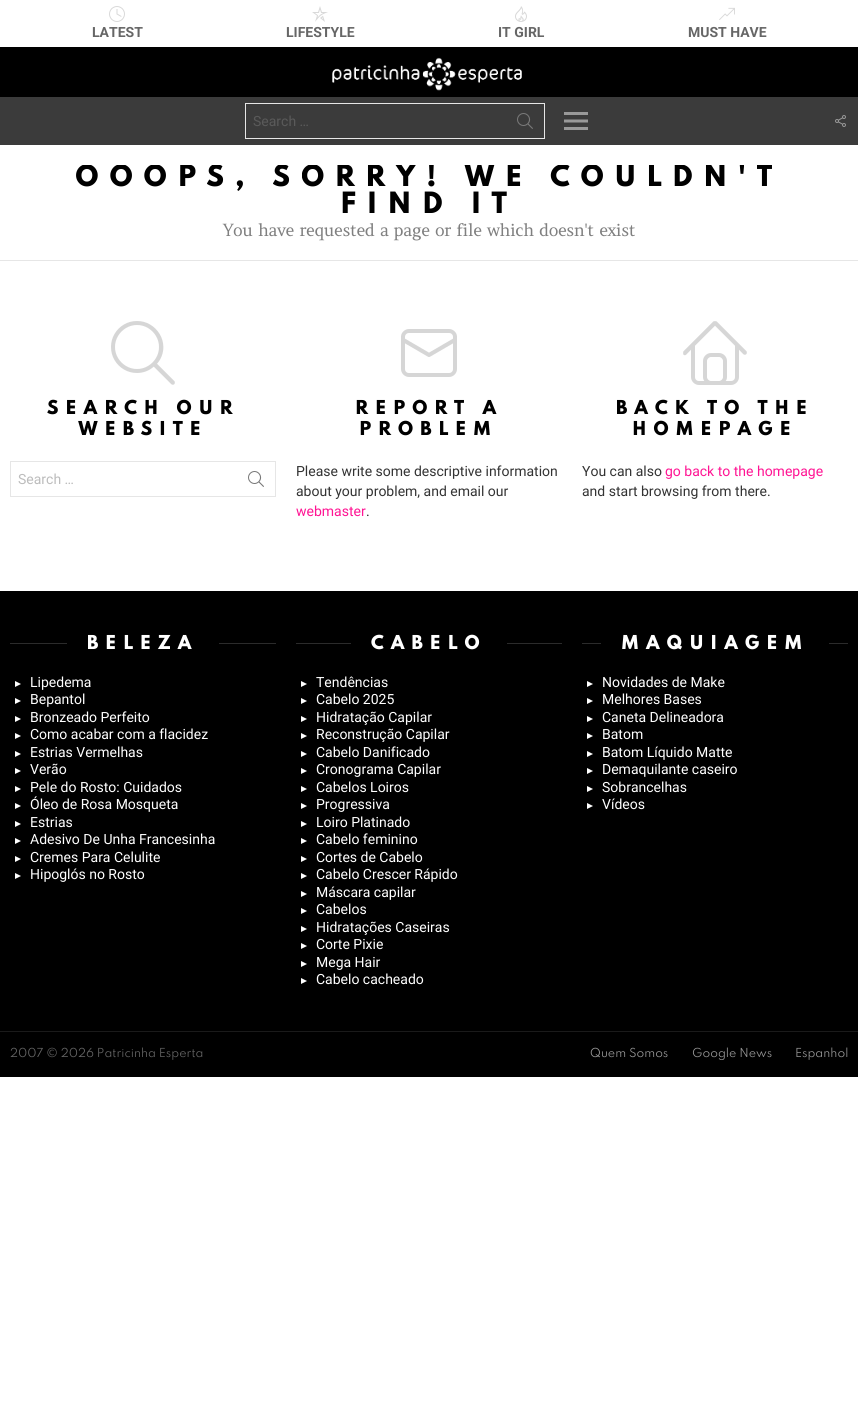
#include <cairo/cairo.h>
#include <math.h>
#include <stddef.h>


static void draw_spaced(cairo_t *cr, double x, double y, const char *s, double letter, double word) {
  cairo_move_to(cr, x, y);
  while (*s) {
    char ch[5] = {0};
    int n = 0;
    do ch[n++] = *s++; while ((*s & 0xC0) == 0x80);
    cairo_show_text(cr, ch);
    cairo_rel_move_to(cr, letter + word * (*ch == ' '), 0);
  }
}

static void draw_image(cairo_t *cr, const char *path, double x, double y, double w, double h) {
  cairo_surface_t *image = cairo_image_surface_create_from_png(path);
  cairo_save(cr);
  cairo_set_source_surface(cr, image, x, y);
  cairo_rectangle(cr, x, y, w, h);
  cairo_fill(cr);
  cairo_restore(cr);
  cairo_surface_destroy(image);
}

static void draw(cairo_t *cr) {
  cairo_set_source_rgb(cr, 1, 1, 1);
  cairo_paint(cr);
  draw_image(cr, "images/1.png", 109, 6, 16, 16);
  draw_image(cr, "images/2.png", 312, 6, 16, 16);
  draw_image(cr, "images/3.png", 515, 6, 12, 16);
  draw_image(cr, "images/4.png", 719, 7, 16, 13);
  cairo_set_source_rgb(cr, 0, 0, 0);
  cairo_rectangle(cr, 0, 47, 858, 50);
  cairo_fill(cr);
  draw_image(cr, "images/5.png", 332, 57, 190, 34);
  cairo_set_source_rgb(cr, 59 / 255.0, 59 / 255.0, 59 / 255.0);
  cairo_rectangle(cr, 0, 97, 858, 48);
  cairo_fill(cr);
  cairo_rectangle(cr, 245.5, 103.5, 299, 35);
  cairo_set_source_rgb(cr, 230 / 255.0, 230 / 255.0, 230 / 255.0);
  cairo_set_line_width(cr, 1);
  cairo_stroke(cr);
  draw_image(cr, "images/6.png", 517, 113, 16, 16);
  draw_image(cr, "images/7.png", 564, 112, 24, 18);
  draw_image(cr, "images/8.png", 835, 115, 11, 12);
  cairo_rectangle(cr, 0, 260, 858, 1);
  cairo_fill(cr);
  draw_image(cr, "images/9.png", 111, 321, 64, 64);
  cairo_rectangle(cr, 10.5, 461.5, 265, 35);
  cairo_stroke(cr);
  draw_image(cr, "images/10.png", 248, 471, 16, 16);
  draw_image(cr, "images/11.png", 401, 329, 56, 48);
  draw_image(cr, "images/12.png", 683, 321, 64, 64);
  cairo_set_source_rgb(cr, 0, 0, 0);
  cairo_rectangle(cr, 0, 591, 858, 440);
  cairo_fill(cr);
  cairo_set_source_rgb(cr, 43 / 255.0, 43 / 255.0, 43 / 255.0);
  cairo_rectangle(cr, 10, 643, 57, 1);
  cairo_fill(cr);
  cairo_rectangle(cr, 219, 643, 57, 1);
  cairo_fill(cr);
  cairo_set_source_rgb(cr, 1, 1, 1);
  cairo_new_path(cr);
  cairo_move_to(cr, 21, 684);
  cairo_line_to(cr, 15, 681);
  cairo_line_to(cr, 15, 687);
  cairo_close_path(cr);
  cairo_fill(cr);
  cairo_new_path(cr);
  cairo_move_to(cr, 21, 701);
  cairo_line_to(cr, 15, 698);
  cairo_line_to(cr, 15, 704);
  cairo_close_path(cr);
  cairo_fill(cr);
  cairo_new_path(cr);
  cairo_move_to(cr, 21, 719);
  cairo_line_to(cr, 15, 716);
  cairo_line_to(cr, 15, 722);
  cairo_close_path(cr);
  cairo_fill(cr);
  cairo_new_path(cr);
  cairo_move_to(cr, 21, 736);
  cairo_line_to(cr, 15, 733);
  cairo_line_to(cr, 15, 739);
  cairo_close_path(cr);
  cairo_fill(cr);
  cairo_new_path(cr);
  cairo_move_to(cr, 21, 754);
  cairo_line_to(cr, 15, 751);
  cairo_line_to(cr, 15, 757);
  cairo_close_path(cr);
  cairo_fill(cr);
  cairo_new_path(cr);
  cairo_move_to(cr, 21, 771);
  cairo_line_to(cr, 15, 768);
  cairo_line_to(cr, 15, 774);
  cairo_close_path(cr);
  cairo_fill(cr);
  cairo_new_path(cr);
  cairo_move_to(cr, 21, 789);
  cairo_line_to(cr, 15, 786);
  cairo_line_to(cr, 15, 792);
  cairo_close_path(cr);
  cairo_fill(cr);
  cairo_new_path(cr);
  cairo_move_to(cr, 21, 806);
  cairo_line_to(cr, 15, 803);
  cairo_line_to(cr, 15, 809);
  cairo_close_path(cr);
  cairo_fill(cr);
  cairo_new_path(cr);
  cairo_move_to(cr, 21, 824);
  cairo_line_to(cr, 15, 821);
  cairo_line_to(cr, 15, 827);
  cairo_close_path(cr);
  cairo_fill(cr);
  cairo_new_path(cr);
  cairo_move_to(cr, 21, 841);
  cairo_line_to(cr, 15, 838);
  cairo_line_to(cr, 15, 844);
  cairo_close_path(cr);
  cairo_fill(cr);
  cairo_new_path(cr);
  cairo_move_to(cr, 21, 859);
  cairo_line_to(cr, 15, 856);
  cairo_line_to(cr, 15, 862);
  cairo_close_path(cr);
  cairo_fill(cr);
  cairo_new_path(cr);
  cairo_move_to(cr, 21, 876);
  cairo_line_to(cr, 15, 873);
  cairo_line_to(cr, 15, 879);
  cairo_close_path(cr);
  cairo_fill(cr);
  cairo_set_source_rgb(cr, 43 / 255.0, 43 / 255.0, 43 / 255.0);
  cairo_rectangle(cr, 296, 643, 55, 1);
  cairo_fill(cr);
  cairo_rectangle(cr, 507, 643, 55, 1);
  cairo_fill(cr);
  cairo_set_source_rgb(cr, 1, 1, 1);
  cairo_new_path(cr);
  cairo_move_to(cr, 307, 684);
  cairo_line_to(cr, 301, 681);
  cairo_line_to(cr, 301, 687);
  cairo_close_path(cr);
  cairo_fill(cr);
  cairo_new_path(cr);
  cairo_move_to(cr, 307, 701);
  cairo_line_to(cr, 301, 698);
  cairo_line_to(cr, 301, 704);
  cairo_close_path(cr);
  cairo_fill(cr);
  cairo_new_path(cr);
  cairo_move_to(cr, 307, 719);
  cairo_line_to(cr, 301, 716);
  cairo_line_to(cr, 301, 722);
  cairo_close_path(cr);
  cairo_fill(cr);
  cairo_new_path(cr);
  cairo_move_to(cr, 307, 736);
  cairo_line_to(cr, 301, 733);
  cairo_line_to(cr, 301, 739);
  cairo_close_path(cr);
  cairo_fill(cr);
  cairo_new_path(cr);
  cairo_move_to(cr, 307, 754);
  cairo_line_to(cr, 301, 751);
  cairo_line_to(cr, 301, 757);
  cairo_close_path(cr);
  cairo_fill(cr);
  cairo_new_path(cr);
  cairo_move_to(cr, 307, 771);
  cairo_line_to(cr, 301, 768);
  cairo_line_to(cr, 301, 774);
  cairo_close_path(cr);
  cairo_fill(cr);
  cairo_new_path(cr);
  cairo_move_to(cr, 307, 789);
  cairo_line_to(cr, 301, 786);
  cairo_line_to(cr, 301, 792);
  cairo_close_path(cr);
  cairo_fill(cr);
  cairo_new_path(cr);
  cairo_move_to(cr, 307, 806);
  cairo_line_to(cr, 301, 803);
  cairo_line_to(cr, 301, 809);
  cairo_close_path(cr);
  cairo_fill(cr);
  cairo_new_path(cr);
  cairo_move_to(cr, 307, 824);
  cairo_line_to(cr, 301, 821);
  cairo_line_to(cr, 301, 827);
  cairo_close_path(cr);
  cairo_fill(cr);
  cairo_new_path(cr);
  cairo_move_to(cr, 307, 841);
  cairo_line_to(cr, 301, 838);
  cairo_line_to(cr, 301, 844);
  cairo_close_path(cr);
  cairo_fill(cr);
  cairo_new_path(cr);
  cairo_move_to(cr, 307, 859);
  cairo_line_to(cr, 301, 856);
  cairo_line_to(cr, 301, 862);
  cairo_close_path(cr);
  cairo_fill(cr);
  cairo_new_path(cr);
  cairo_move_to(cr, 307, 876);
  cairo_line_to(cr, 301, 873);
  cairo_line_to(cr, 301, 879);
  cairo_close_path(cr);
  cairo_fill(cr);
  cairo_new_path(cr);
  cairo_move_to(cr, 307, 894);
  cairo_line_to(cr, 301, 891);
  cairo_line_to(cr, 301, 897);
  cairo_close_path(cr);
  cairo_fill(cr);
  cairo_new_path(cr);
  cairo_move_to(cr, 307, 911);
  cairo_line_to(cr, 301, 908);
  cairo_line_to(cr, 301, 914);
  cairo_close_path(cr);
  cairo_fill(cr);
  cairo_new_path(cr);
  cairo_move_to(cr, 307, 929);
  cairo_line_to(cr, 301, 926);
  cairo_line_to(cr, 301, 932);
  cairo_close_path(cr);
  cairo_fill(cr);
  cairo_new_path(cr);
  cairo_move_to(cr, 307, 946);
  cairo_line_to(cr, 301, 943);
  cairo_line_to(cr, 301, 949);
  cairo_close_path(cr);
  cairo_fill(cr);
  cairo_new_path(cr);
  cairo_move_to(cr, 307, 964);
  cairo_line_to(cr, 301, 961);
  cairo_line_to(cr, 301, 967);
  cairo_close_path(cr);
  cairo_fill(cr);
  cairo_new_path(cr);
  cairo_move_to(cr, 307, 981);
  cairo_line_to(cr, 301, 978);
  cairo_line_to(cr, 301, 984);
  cairo_close_path(cr);
  cairo_fill(cr);
  cairo_set_source_rgb(cr, 43 / 255.0, 43 / 255.0, 43 / 255.0);
  cairo_rectangle(cr, 582, 643, 19, 1);
  cairo_fill(cr);
  cairo_rectangle(cr, 829, 643, 19, 1);
  cairo_fill(cr);
  cairo_set_source_rgb(cr, 1, 1, 1);
  cairo_new_path(cr);
  cairo_move_to(cr, 593, 684);
  cairo_line_to(cr, 587, 681);
  cairo_line_to(cr, 587, 687);
  cairo_close_path(cr);
  cairo_fill(cr);
  cairo_new_path(cr);
  cairo_move_to(cr, 593, 701);
  cairo_line_to(cr, 587, 698);
  cairo_line_to(cr, 587, 704);
  cairo_close_path(cr);
  cairo_fill(cr);
  cairo_new_path(cr);
  cairo_move_to(cr, 593, 719);
  cairo_line_to(cr, 587, 716);
  cairo_line_to(cr, 587, 722);
  cairo_close_path(cr);
  cairo_fill(cr);
  cairo_new_path(cr);
  cairo_move_to(cr, 593, 736);
  cairo_line_to(cr, 587, 733);
  cairo_line_to(cr, 587, 739);
  cairo_close_path(cr);
  cairo_fill(cr);
  cairo_new_path(cr);
  cairo_move_to(cr, 593, 754);
  cairo_line_to(cr, 587, 751);
  cairo_line_to(cr, 587, 757);
  cairo_close_path(cr);
  cairo_fill(cr);
  cairo_new_path(cr);
  cairo_move_to(cr, 593, 771);
  cairo_line_to(cr, 587, 768);
  cairo_line_to(cr, 587, 774);
  cairo_close_path(cr);
  cairo_fill(cr);
  cairo_new_path(cr);
  cairo_move_to(cr, 593, 789);
  cairo_line_to(cr, 587, 786);
  cairo_line_to(cr, 587, 792);
  cairo_close_path(cr);
  cairo_fill(cr);
  cairo_new_path(cr);
  cairo_move_to(cr, 593, 806);
  cairo_line_to(cr, 587, 803);
  cairo_line_to(cr, 587, 809);
  cairo_close_path(cr);
  cairo_fill(cr);
  cairo_set_source_rgb(cr, 26 / 255.0, 26 / 255.0, 26 / 255.0);
  cairo_rectangle(cr, 0, 1031, 858, 1);
  cairo_fill(cr);
  cairo_set_source_rgb(cr, 0, 0, 0);
  cairo_rectangle(cr, 0, 1032, 858, 45);
  cairo_fill(cr);
  cairo_select_font_face(cr, "Roboto", CAIRO_FONT_SLANT_NORMAL, CAIRO_FONT_WEIGHT_BOLD);
  cairo_set_font_size(cr, 14);
  cairo_set_source_rgb(cr, 102 / 255.0, 102 / 255.0, 102 / 255.0);
  cairo_move_to(cr, 92, 37);
  cairo_show_text(cr, "LATEST");
  cairo_move_to(cr, 286, 37);
  cairo_show_text(cr, "LIFESTYLE");
  cairo_move_to(cr, 498, 37);
  cairo_show_text(cr, "IT GIRL");
  cairo_move_to(cr, 688, 37);
  cairo_show_text(cr, "MUST HAVE");
  cairo_select_font_face(cr, "Roboto", CAIRO_FONT_SLANT_NORMAL, CAIRO_FONT_WEIGHT_NORMAL);
  cairo_set_source_rgb(cr, 90 / 255.0, 90 / 255.0, 90 / 255.0);
  cairo_move_to(cr, 253, 126);
  cairo_show_text(cr, "Search …");
  cairo_save(cr);
  cairo_rectangle(cr, 10, 165, 838, 55);
  cairo_clip(cr);
  cairo_select_font_face(cr, "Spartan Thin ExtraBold", CAIRO_FONT_SLANT_NORMAL, CAIRO_FONT_WEIGHT_NORMAL);
  cairo_set_font_size(cr, 26);
  cairo_set_source_rgb(cr, 0, 0, 0);
  draw_spaced(cr, 75, 186, "OOOPS, SORRY! WE COULDN'T", 10.4, 0);
  cairo_restore(cr);
  cairo_select_font_face(cr, "Spartan Thin ExtraBold", CAIRO_FONT_SLANT_NORMAL, CAIRO_FONT_WEIGHT_NORMAL);
  cairo_set_font_size(cr, 26);
  cairo_set_source_rgb(cr, 0, 0, 0);
  draw_spaced(cr, 340, 213, "FIND IT", 10.4, 0);
  cairo_select_font_face(cr, "Amethysta", CAIRO_FONT_SLANT_NORMAL, CAIRO_FONT_WEIGHT_NORMAL);
  cairo_set_font_size(cr, 17);
  cairo_set_source_rgb(cr, 128 / 255.0, 128 / 255.0, 128 / 255.0);
  draw_spaced(cr, 223, 236, "You have requested a page or file which doesn't exist", -0.42, 0);
  cairo_select_font_face(cr, "Spartan Thin ExtraBold", CAIRO_FONT_SLANT_NORMAL, CAIRO_FONT_WEIGHT_NORMAL);
  cairo_set_source_rgb(cr, 0, 0, 0);
  draw_spaced(cr, 47, 414, "SEARCH OUR", 6.75, 0);
  draw_spaced(cr, 78, 435, "WEBSITE", 6.75, 0);
  cairo_select_font_face(cr, "Roboto", CAIRO_FONT_SLANT_NORMAL, CAIRO_FONT_WEIGHT_NORMAL);
  cairo_set_font_size(cr, 14);
  cairo_set_source_rgb(cr, 188 / 255.0, 188 / 255.0, 188 / 255.0);
  cairo_move_to(cr, 18, 484);
  cairo_show_text(cr, "Search …");
  cairo_select_font_face(cr, "Spartan Thin ExtraBold", CAIRO_FONT_SLANT_NORMAL, CAIRO_FONT_WEIGHT_NORMAL);
  cairo_set_font_size(cr, 17);
  cairo_set_source_rgb(cr, 0, 0, 0);
  draw_spaced(cr, 355, 414, "REPORT A", 6.75, 0);
  draw_spaced(cr, 359, 435, "PROBLEM", 6.75, 0);
  cairo_select_font_face(cr, "Roboto", CAIRO_FONT_SLANT_NORMAL, CAIRO_FONT_WEIGHT_NORMAL);
  cairo_set_font_size(cr, 14);
  cairo_set_source_rgb(cr, 51 / 255.0, 51 / 255.0, 51 / 255.0);
  cairo_move_to(cr, 296, 476);
  cairo_show_text(cr, "Please write some descriptive information");
  cairo_move_to(cr, 296, 496);
  cairo_show_text(cr, "about your problem, and email our");
  cairo_set_source_rgb(cr, 1, 20 / 255.0, 147 / 255.0);
  cairo_move_to(cr, 296, 516);
  cairo_show_text(cr, "webmaster");
  cairo_set_source_rgb(cr, 51 / 255.0, 51 / 255.0, 51 / 255.0);
  cairo_move_to(cr, 366, 516);
  cairo_show_text(cr, ".");
  cairo_select_font_face(cr, "Spartan Thin ExtraBold", CAIRO_FONT_SLANT_NORMAL, CAIRO_FONT_WEIGHT_NORMAL);
  cairo_set_font_size(cr, 17);
  cairo_set_source_rgb(cr, 0, 0, 0);
  draw_spaced(cr, 616, 414, "BACK TO THE", 6.75, 0);
  draw_spaced(cr, 632, 435, "HOMEPAGE", 6.75, 0);
  cairo_select_font_face(cr, "Roboto", CAIRO_FONT_SLANT_NORMAL, CAIRO_FONT_WEIGHT_NORMAL);
  cairo_set_font_size(cr, 14);
  cairo_set_source_rgb(cr, 51 / 255.0, 51 / 255.0, 51 / 255.0);
  cairo_move_to(cr, 582, 476);
  cairo_show_text(cr, "You can also");
  cairo_set_source_rgb(cr, 1, 20 / 255.0, 147 / 255.0);
  cairo_move_to(cr, 665, 476);
  cairo_show_text(cr, "go back to the homepage");
  cairo_set_source_rgb(cr, 51 / 255.0, 51 / 255.0, 51 / 255.0);
  cairo_move_to(cr, 582, 496);
  cairo_show_text(cr, "and start browsing from there.");
  cairo_select_font_face(cr, "Spartan Thin ExtraBold", CAIRO_FONT_SLANT_NORMAL, CAIRO_FONT_WEIGHT_NORMAL);
  cairo_set_font_size(cr, 17);
  cairo_set_source_rgb(cr, 1, 1, 1);
  draw_spaced(cr, 87, 649, "BELEZA", 6.75, 0);
  cairo_select_font_face(cr, "Roboto", CAIRO_FONT_SLANT_NORMAL, CAIRO_FONT_WEIGHT_NORMAL);
  cairo_set_font_size(cr, 14);
  cairo_move_to(cr, 30, 687);
  cairo_show_text(cr, "Lipedema");
  cairo_move_to(cr, 30, 704);
  cairo_show_text(cr, "Bepantol");
  cairo_move_to(cr, 30, 722);
  cairo_show_text(cr, "Bronzeado Perfeito");
  cairo_move_to(cr, 30, 739);
  cairo_show_text(cr, "Como acabar com a flacidez");
  cairo_move_to(cr, 30, 757);
  cairo_show_text(cr, "Estrias Vermelhas");
  cairo_move_to(cr, 30, 774);
  cairo_show_text(cr, "Verão");
  cairo_move_to(cr, 30, 792);
  cairo_show_text(cr, "Pele do Rosto: Cuidados");
  cairo_move_to(cr, 30, 809);
  cairo_show_text(cr, "Óleo de Rosa Mosqueta");
  cairo_move_to(cr, 30, 827);
  cairo_show_text(cr, "Estrias");
  cairo_move_to(cr, 30, 844);
  cairo_show_text(cr, "Adesivo De Unha Francesinha");
  cairo_move_to(cr, 30, 862);
  cairo_show_text(cr, "Cremes Para Celulite");
  cairo_move_to(cr, 30, 879);
  cairo_show_text(cr, "Hipoglós no Rosto");
  cairo_select_font_face(cr, "Spartan Thin ExtraBold", CAIRO_FONT_SLANT_NORMAL, CAIRO_FONT_WEIGHT_NORMAL);
  cairo_set_font_size(cr, 17);
  draw_spaced(cr, 371, 649, "CABELO", 6.75, 0);
  cairo_select_font_face(cr, "Roboto", CAIRO_FONT_SLANT_NORMAL, CAIRO_FONT_WEIGHT_NORMAL);
  cairo_set_font_size(cr, 14);
  cairo_move_to(cr, 316, 687);
  cairo_show_text(cr, "Tendências");
  cairo_move_to(cr, 316, 704);
  cairo_show_text(cr, "Cabelo 2025");
  cairo_move_to(cr, 316, 722);
  cairo_show_text(cr, "Hidratação Capilar");
  cairo_move_to(cr, 316, 739);
  cairo_show_text(cr, "Reconstrução Capilar");
  cairo_move_to(cr, 316, 757);
  cairo_show_text(cr, "Cabelo Danificado");
  cairo_move_to(cr, 316, 774);
  cairo_show_text(cr, "Cronograma Capilar");
  cairo_move_to(cr, 316, 792);
  cairo_show_text(cr, "Cabelos Loiros");
  cairo_move_to(cr, 316, 809);
  cairo_show_text(cr, "Progressiva");
  cairo_move_to(cr, 316, 827);
  cairo_show_text(cr, "Loiro Platinado");
  cairo_move_to(cr, 316, 844);
  cairo_show_text(cr, "Cabelo feminino");
  cairo_move_to(cr, 316, 862);
  cairo_show_text(cr, "Cortes de Cabelo");
  cairo_move_to(cr, 316, 879);
  cairo_show_text(cr, "Cabelo Crescer Rápido");
  cairo_move_to(cr, 316, 897);
  cairo_show_text(cr, "Máscara capilar");
  cairo_move_to(cr, 316, 914);
  cairo_show_text(cr, "Cabelos");
  cairo_move_to(cr, 316, 932);
  cairo_show_text(cr, "Hidratações Caseiras");
  cairo_move_to(cr, 316, 949);
  cairo_show_text(cr, "Corte Pixie");
  cairo_move_to(cr, 316, 967);
  cairo_show_text(cr, "Mega Hair");
  cairo_move_to(cr, 316, 984);
  cairo_show_text(cr, "Cabelo cacheado");
  cairo_select_font_face(cr, "Spartan Thin ExtraBold", CAIRO_FONT_SLANT_NORMAL, CAIRO_FONT_WEIGHT_NORMAL);
  cairo_set_font_size(cr, 17);
  draw_spaced(cr, 621, 649, "MAQUIAGEM", 6.75, 0);
  cairo_select_font_face(cr, "Roboto", CAIRO_FONT_SLANT_NORMAL, CAIRO_FONT_WEIGHT_NORMAL);
  cairo_set_font_size(cr, 14);
  cairo_move_to(cr, 602, 687);
  cairo_show_text(cr, "Novidades de Make");
  cairo_move_to(cr, 602, 704);
  cairo_show_text(cr, "Melhores Bases");
  cairo_move_to(cr, 602, 722);
  cairo_show_text(cr, "Caneta Delineadora");
  cairo_move_to(cr, 602, 739);
  cairo_show_text(cr, "Batom");
  cairo_move_to(cr, 602, 757);
  cairo_show_text(cr, "Batom Líquido Matte");
  cairo_move_to(cr, 602, 774);
  cairo_show_text(cr, "Demaquilante caseiro");
  cairo_move_to(cr, 602, 792);
  cairo_show_text(cr, "Sobrancelhas");
  cairo_move_to(cr, 602, 809);
  cairo_show_text(cr, "Vídeos");
  cairo_select_font_face(cr, "Spartan Thin", CAIRO_FONT_SLANT_NORMAL, CAIRO_FONT_WEIGHT_NORMAL);
  cairo_set_font_size(cr, 11);
  cairo_set_source_rgb(cr, 102 / 255.0, 102 / 255.0, 102 / 255.0);
  cairo_move_to(cr, 10, 1057);
  cairo_show_text(cr, "2007 © 2026 Patricinha Esperta");
  cairo_set_source_rgb(cr, 153 / 255.0, 153 / 255.0, 153 / 255.0);
  cairo_move_to(cr, 590, 1057);
  cairo_show_text(cr, "Quem Somos");
  cairo_move_to(cr, 692, 1057);
  cairo_show_text(cr, "Google News");
  cairo_move_to(cr, 795, 1057);
  cairo_show_text(cr, "Espanhol");
}

int main(void) {
  cairo_surface_t *surface = cairo_image_surface_create(CAIRO_FORMAT_RGB24, 858, 1428);
  cairo_t *cr = cairo_create(surface);
  cairo_font_options_t *options = cairo_font_options_create();
  cairo_font_options_set_hint_metrics(options, CAIRO_HINT_METRICS_OFF);
  cairo_font_options_set_hint_style(options, CAIRO_HINT_STYLE_NONE);
  cairo_set_font_options(cr, options);
  cairo_set_miter_limit(cr, 4);
  draw(cr);
  cairo_surface_write_to_png(surface, "out.png");
  cairo_font_options_destroy(options);
  cairo_destroy(cr);
  cairo_surface_destroy(surface);
  return 0;
}
